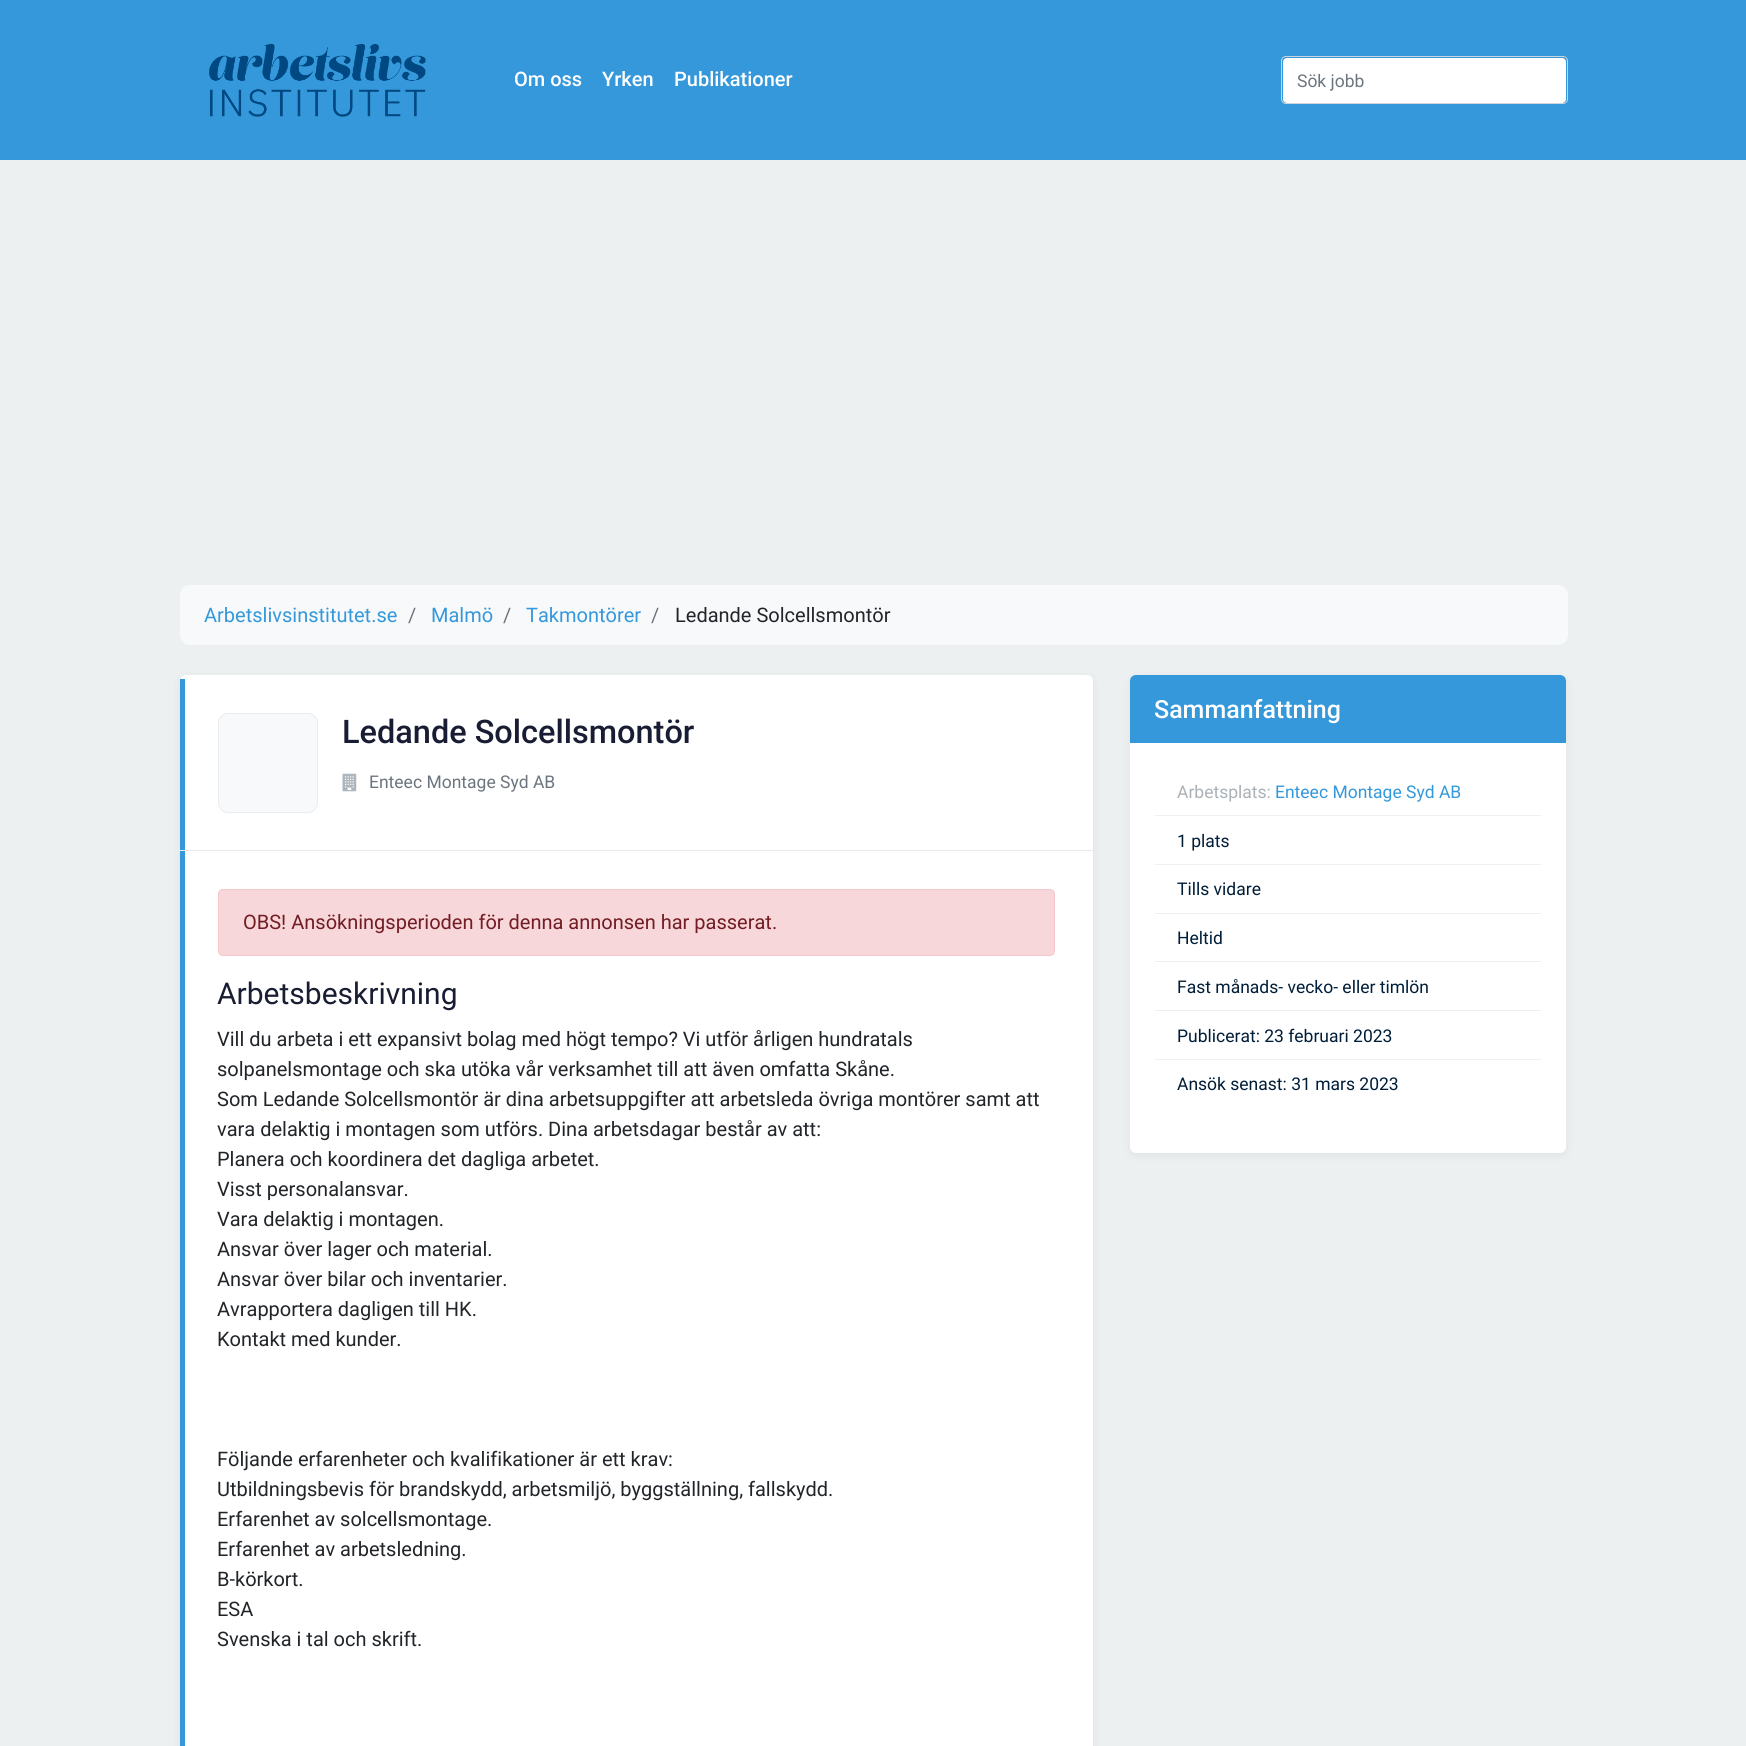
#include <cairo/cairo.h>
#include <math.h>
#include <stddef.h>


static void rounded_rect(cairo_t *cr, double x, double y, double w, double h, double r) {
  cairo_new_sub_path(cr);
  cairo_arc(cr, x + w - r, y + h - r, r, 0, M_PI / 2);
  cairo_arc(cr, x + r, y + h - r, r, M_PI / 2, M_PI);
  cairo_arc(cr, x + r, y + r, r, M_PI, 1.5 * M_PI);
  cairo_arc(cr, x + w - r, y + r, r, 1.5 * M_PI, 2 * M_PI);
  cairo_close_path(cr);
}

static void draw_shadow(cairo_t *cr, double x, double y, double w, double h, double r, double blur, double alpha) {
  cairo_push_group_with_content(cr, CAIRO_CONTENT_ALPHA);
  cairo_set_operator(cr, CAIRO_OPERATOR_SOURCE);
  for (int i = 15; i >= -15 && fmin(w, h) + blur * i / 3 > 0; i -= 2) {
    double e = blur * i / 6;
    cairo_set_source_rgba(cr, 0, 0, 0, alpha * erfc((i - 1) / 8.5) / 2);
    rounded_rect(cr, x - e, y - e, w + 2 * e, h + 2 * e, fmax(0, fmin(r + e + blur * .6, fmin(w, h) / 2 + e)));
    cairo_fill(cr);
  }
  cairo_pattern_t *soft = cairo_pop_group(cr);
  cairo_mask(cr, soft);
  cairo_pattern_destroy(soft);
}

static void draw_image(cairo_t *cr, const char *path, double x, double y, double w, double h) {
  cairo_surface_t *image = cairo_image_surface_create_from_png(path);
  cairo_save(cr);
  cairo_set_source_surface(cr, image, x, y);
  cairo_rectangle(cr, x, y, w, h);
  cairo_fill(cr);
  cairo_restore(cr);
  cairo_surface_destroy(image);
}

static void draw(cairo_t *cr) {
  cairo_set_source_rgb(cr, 236 / 255.0, 240 / 255.0, 241 / 255.0);
  cairo_paint(cr);
  cairo_set_source_rgb(cr, 52 / 255.0, 152 / 255.0, 219 / 255.0);
  cairo_rectangle(cr, 0, 0, 1746, 160);
  cairo_fill(cr);
  draw_image(cr, "images/1.png", 209, 43, 217, 74);
  cairo_set_source_rgb(cr, 1, 1, 1);
  rounded_rect(cr, 1283, 58, 283, 45, 4);
  cairo_fill(cr);
  rounded_rect(cr, 1281.5, 56.5, 286, 47, 4.5);
  cairo_set_source_rgb(cr, 206 / 255.0, 212 / 255.0, 218 / 255.0);
  cairo_set_line_width(cr, 1);
  cairo_stroke(cr);
  cairo_set_source_rgb(cr, 248 / 255.0, 249 / 255.0, 250 / 255.0);
  rounded_rect(cr, 180, 585, 1388, 60, 10);
  cairo_fill(cr);
  cairo_set_source_rgb(cr, 0, 0, 0);
  draw_shadow(cr, 180, 678, 913, 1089, 6, 5, 0.06);
  cairo_set_source_rgb(cr, 1, 1, 1);
  rounded_rect(cr, 180, 675, 913, 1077, 6);
  cairo_fill(cr);
  cairo_set_source_rgb(cr, 52 / 255.0, 152 / 255.0, 219 / 255.0);
  cairo_rectangle(cr, 180, 679, 5, 1067);
  cairo_fill(cr);
  cairo_set_source_rgb(cr, 248 / 255.0, 249 / 255.0, 250 / 255.0);
  rounded_rect(cr, 218.5, 713.5, 99, 99, 9.5);
  cairo_fill_preserve(cr);
  cairo_set_source_rgb(cr, 233 / 255.0, 236 / 255.0, 239 / 255.0);
  cairo_stroke(cr);
  draw_image(cr, "images/2.png", 342, 773, 15, 19);
  cairo_set_source_rgb(cr, 234 / 255.0, 234 / 255.0, 234 / 255.0);
  cairo_rectangle(cr, 180, 850, 913, 1);
  cairo_fill(cr);
  cairo_set_source_rgb(cr, 248 / 255.0, 215 / 255.0, 218 / 255.0);
  rounded_rect(cr, 218.5, 889.5, 836, 66, 4.5);
  cairo_fill_preserve(cr);
  cairo_set_source_rgb(cr, 245 / 255.0, 198 / 255.0, 203 / 255.0);
  cairo_stroke(cr);
  cairo_set_source_rgb(cr, 0, 0, 0);
  draw_shadow(cr, 1130, 678, 436, 477, 6, 5, 0.06);
  cairo_set_source_rgb(cr, 1, 1, 1);
  rounded_rect(cr, 1130, 675, 436, 478, 6);
  cairo_fill(cr);
  cairo_set_source_rgb(cr, 52 / 255.0, 152 / 255.0, 219 / 255.0);
  cairo_new_path(cr);
  cairo_move_to(cr, 1136, 675);
  cairo_line_to(cr, 1560, 675);
  cairo_curve_to(cr, 1563.5, 675, 1566, 677.5, 1566, 681);
  cairo_line_to(cr, 1566, 743);
  cairo_line_to(cr, 1130, 743);
  cairo_line_to(cr, 1130, 681);
  cairo_curve_to(cr, 1130, 677.5, 1132.5, 675, 1136, 675);
  cairo_close_path(cr);
  cairo_fill(cr);
  cairo_set_source_rgb(cr, 240 / 255.0, 240 / 255.0, 240 / 255.0);
  cairo_rectangle(cr, 1155, 815, 386, 1);
  cairo_fill(cr);
  cairo_rectangle(cr, 1155, 864, 386, 1);
  cairo_fill(cr);
  cairo_rectangle(cr, 1155, 913, 386, 1);
  cairo_fill(cr);
  cairo_rectangle(cr, 1155, 961, 386, 1);
  cairo_fill(cr);
  cairo_rectangle(cr, 1155, 1010, 386, 1);
  cairo_fill(cr);
  cairo_rectangle(cr, 1155, 1059, 386, 1);
  cairo_fill(cr);
  cairo_select_font_face(cr, "Roboto Medium", CAIRO_FONT_SLANT_NORMAL, CAIRO_FONT_WEIGHT_NORMAL);
  cairo_set_font_size(cr, 20);
  cairo_set_source_rgb(cr, 1, 1, 1);
  cairo_move_to(cr, 514, 86);
  cairo_show_text(cr, "Om oss");
  cairo_move_to(cr, 602, 86);
  cairo_show_text(cr, "Yrken");
  cairo_move_to(cr, 674, 86);
  cairo_show_text(cr, "Publikationer");
  cairo_select_font_face(cr, "Roboto", CAIRO_FONT_SLANT_NORMAL, CAIRO_FONT_WEIGHT_NORMAL);
  cairo_set_font_size(cr, 17.5);
  cairo_set_source_rgb(cr, 108 / 255.0, 117 / 255.0, 125 / 255.0);
  cairo_move_to(cr, 1297, 87);
  cairo_show_text(cr, "Sök jobb");
  cairo_set_font_size(cr, 20);
  cairo_set_source_rgb(cr, 52 / 255.0, 152 / 255.0, 219 / 255.0);
  cairo_move_to(cr, 204, 622);
  cairo_show_text(cr, "Arbetslivsinstitutet.se");
  cairo_set_source_rgb(cr, 108 / 255.0, 117 / 255.0, 125 / 255.0);
  cairo_move_to(cr, 408, 622);
  cairo_show_text(cr, "/");
  cairo_set_source_rgb(cr, 52 / 255.0, 152 / 255.0, 219 / 255.0);
  cairo_move_to(cr, 431, 622);
  cairo_show_text(cr, "Malmö");
  cairo_set_source_rgb(cr, 108 / 255.0, 117 / 255.0, 125 / 255.0);
  cairo_move_to(cr, 503, 622);
  cairo_show_text(cr, "/");
  cairo_set_source_rgb(cr, 52 / 255.0, 152 / 255.0, 219 / 255.0);
  cairo_move_to(cr, 526, 622);
  cairo_show_text(cr, "Takmontörer");
  cairo_set_source_rgb(cr, 108 / 255.0, 117 / 255.0, 125 / 255.0);
  cairo_move_to(cr, 651, 622);
  cairo_show_text(cr, "/");
  cairo_set_source_rgb(cr, 33 / 255.0, 37 / 255.0, 41 / 255.0);
  cairo_move_to(cr, 675, 622);
  cairo_show_text(cr, "Ledande Solcellsmontör");
  cairo_select_font_face(cr, "Roboto Medium", CAIRO_FONT_SLANT_NORMAL, CAIRO_FONT_WEIGHT_NORMAL);
  cairo_set_font_size(cr, 32.5);
  cairo_set_source_rgb(cr, 25 / 255.0, 29 / 255.0, 52 / 255.0);
  cairo_move_to(cr, 342, 743);
  cairo_show_text(cr, "Ledande Solcellsmontör");
  cairo_select_font_face(cr, "Roboto", CAIRO_FONT_SLANT_NORMAL, CAIRO_FONT_WEIGHT_NORMAL);
  cairo_set_font_size(cr, 17.5);
  cairo_set_source_rgb(cr, 108 / 255.0, 117 / 255.0, 125 / 255.0);
  cairo_move_to(cr, 369, 788);
  cairo_show_text(cr, "Enteec Montage Syd AB");
  cairo_set_font_size(cr, 20);
  cairo_set_source_rgb(cr, 114 / 255.0, 28 / 255.0, 36 / 255.0);
  cairo_move_to(cr, 243, 929);
  cairo_show_text(cr, "OBS! Ansökningsperioden för denna annonsen har passerat.");
  cairo_set_font_size(cr, 30);
  cairo_set_source_rgb(cr, 25 / 255.0, 29 / 255.0, 52 / 255.0);
  cairo_move_to(cr, 217, 1004);
  cairo_show_text(cr, "Arbetsbeskrivning");
  cairo_set_font_size(cr, 20);
  cairo_set_source_rgb(cr, 33 / 255.0, 37 / 255.0, 41 / 255.0);
  cairo_move_to(cr, 217, 1046);
  cairo_show_text(cr, "Vill du arbeta i ett expansivt bolag med högt tempo? Vi utför årligen hundratals");
  cairo_move_to(cr, 217, 1076);
  cairo_show_text(cr, "solpanelsmontage och ska utöka vår verksamhet till att även omfatta Skåne.");
  cairo_move_to(cr, 217, 1106);
  cairo_show_text(cr, "Som Ledande Solcellsmontör är dina arbetsuppgifter att arbetsleda övriga montörer samt att");
  cairo_move_to(cr, 217, 1136);
  cairo_show_text(cr, "vara delaktig i montagen som utförs. Dina arbetsdagar består av att:");
  cairo_move_to(cr, 217, 1166);
  cairo_show_text(cr, "Planera och koordinera det dagliga arbetet.");
  cairo_move_to(cr, 217, 1196);
  cairo_show_text(cr, "Visst personalansvar.");
  cairo_move_to(cr, 217, 1226);
  cairo_show_text(cr, "Vara delaktig i montagen.");
  cairo_move_to(cr, 217, 1256);
  cairo_show_text(cr, "Ansvar över lager och material.");
  cairo_move_to(cr, 217, 1286);
  cairo_show_text(cr, "Ansvar över bilar och inventarier.");
  cairo_move_to(cr, 217, 1316);
  cairo_show_text(cr, "Avrapportera dagligen till HK.");
  cairo_move_to(cr, 217, 1346);
  cairo_show_text(cr, "Kontakt med kunder.");
  cairo_move_to(cr, 217, 1466);
  cairo_show_text(cr, "Följande erfarenheter och kvalifikationer är ett krav:");
  cairo_move_to(cr, 217, 1496);
  cairo_show_text(cr, "Utbildningsbevis för brandskydd, arbetsmiljö, byggställning, fallskydd.");
  cairo_move_to(cr, 217, 1526);
  cairo_show_text(cr, "Erfarenhet av solcellsmontage.");
  cairo_move_to(cr, 217, 1556);
  cairo_show_text(cr, "Erfarenhet av arbetsledning.");
  cairo_move_to(cr, 217, 1586);
  cairo_show_text(cr, "B-körkort.");
  cairo_move_to(cr, 217, 1616);
  cairo_show_text(cr, "ESA");
  cairo_move_to(cr, 217, 1646);
  cairo_show_text(cr, "Svenska i tal och skrift.");
  cairo_select_font_face(cr, "Roboto Medium", CAIRO_FONT_SLANT_NORMAL, CAIRO_FONT_WEIGHT_NORMAL);
  cairo_set_font_size(cr, 25);
  cairo_set_source_rgb(cr, 1, 1, 1);
  cairo_move_to(cr, 1154, 718);
  cairo_show_text(cr, "Sammanfattning");
  cairo_select_font_face(cr, "Roboto", CAIRO_FONT_SLANT_NORMAL, CAIRO_FONT_WEIGHT_NORMAL);
  cairo_set_font_size(cr, 17.5);
  cairo_set_source_rgb(cr, 170 / 255.0, 177 / 255.0, 183 / 255.0);
  cairo_move_to(cr, 1177, 798);
  cairo_show_text(cr, "Arbetsplats:");
  cairo_set_source_rgb(cr, 52 / 255.0, 152 / 255.0, 219 / 255.0);
  cairo_move_to(cr, 1275, 798);
  cairo_show_text(cr, "Enteec Montage Syd AB");
  cairo_set_source_rgb(cr, 0, 29 / 255.0, 56 / 255.0);
  cairo_move_to(cr, 1177, 847);
  cairo_show_text(cr, "1 plats");
  cairo_move_to(cr, 1177, 895);
  cairo_show_text(cr, "Tills vidare");
  cairo_move_to(cr, 1177, 944);
  cairo_show_text(cr, "Heltid");
  cairo_move_to(cr, 1177, 993);
  cairo_show_text(cr, "Fast månads- vecko- eller timlön");
  cairo_move_to(cr, 1177, 1042);
  cairo_show_text(cr, "Publicerat: 23 februari 2023");
  cairo_move_to(cr, 1177, 1090);
  cairo_show_text(cr, "Ansök senast: 31 mars 2023");
}

int main(void) {
  cairo_surface_t *surface = cairo_image_surface_create(CAIRO_FORMAT_RGB24, 1746, 1746);
  cairo_t *cr = cairo_create(surface);
  cairo_font_options_t *options = cairo_font_options_create();
  cairo_font_options_set_hint_metrics(options, CAIRO_HINT_METRICS_OFF);
  cairo_font_options_set_hint_style(options, CAIRO_HINT_STYLE_NONE);
  cairo_set_font_options(cr, options);
  cairo_set_miter_limit(cr, 4);
  draw(cr);
  cairo_surface_write_to_png(surface, "out.png");
  cairo_font_options_destroy(options);
  cairo_destroy(cr);
  cairo_surface_destroy(surface);
  return 0;
}
